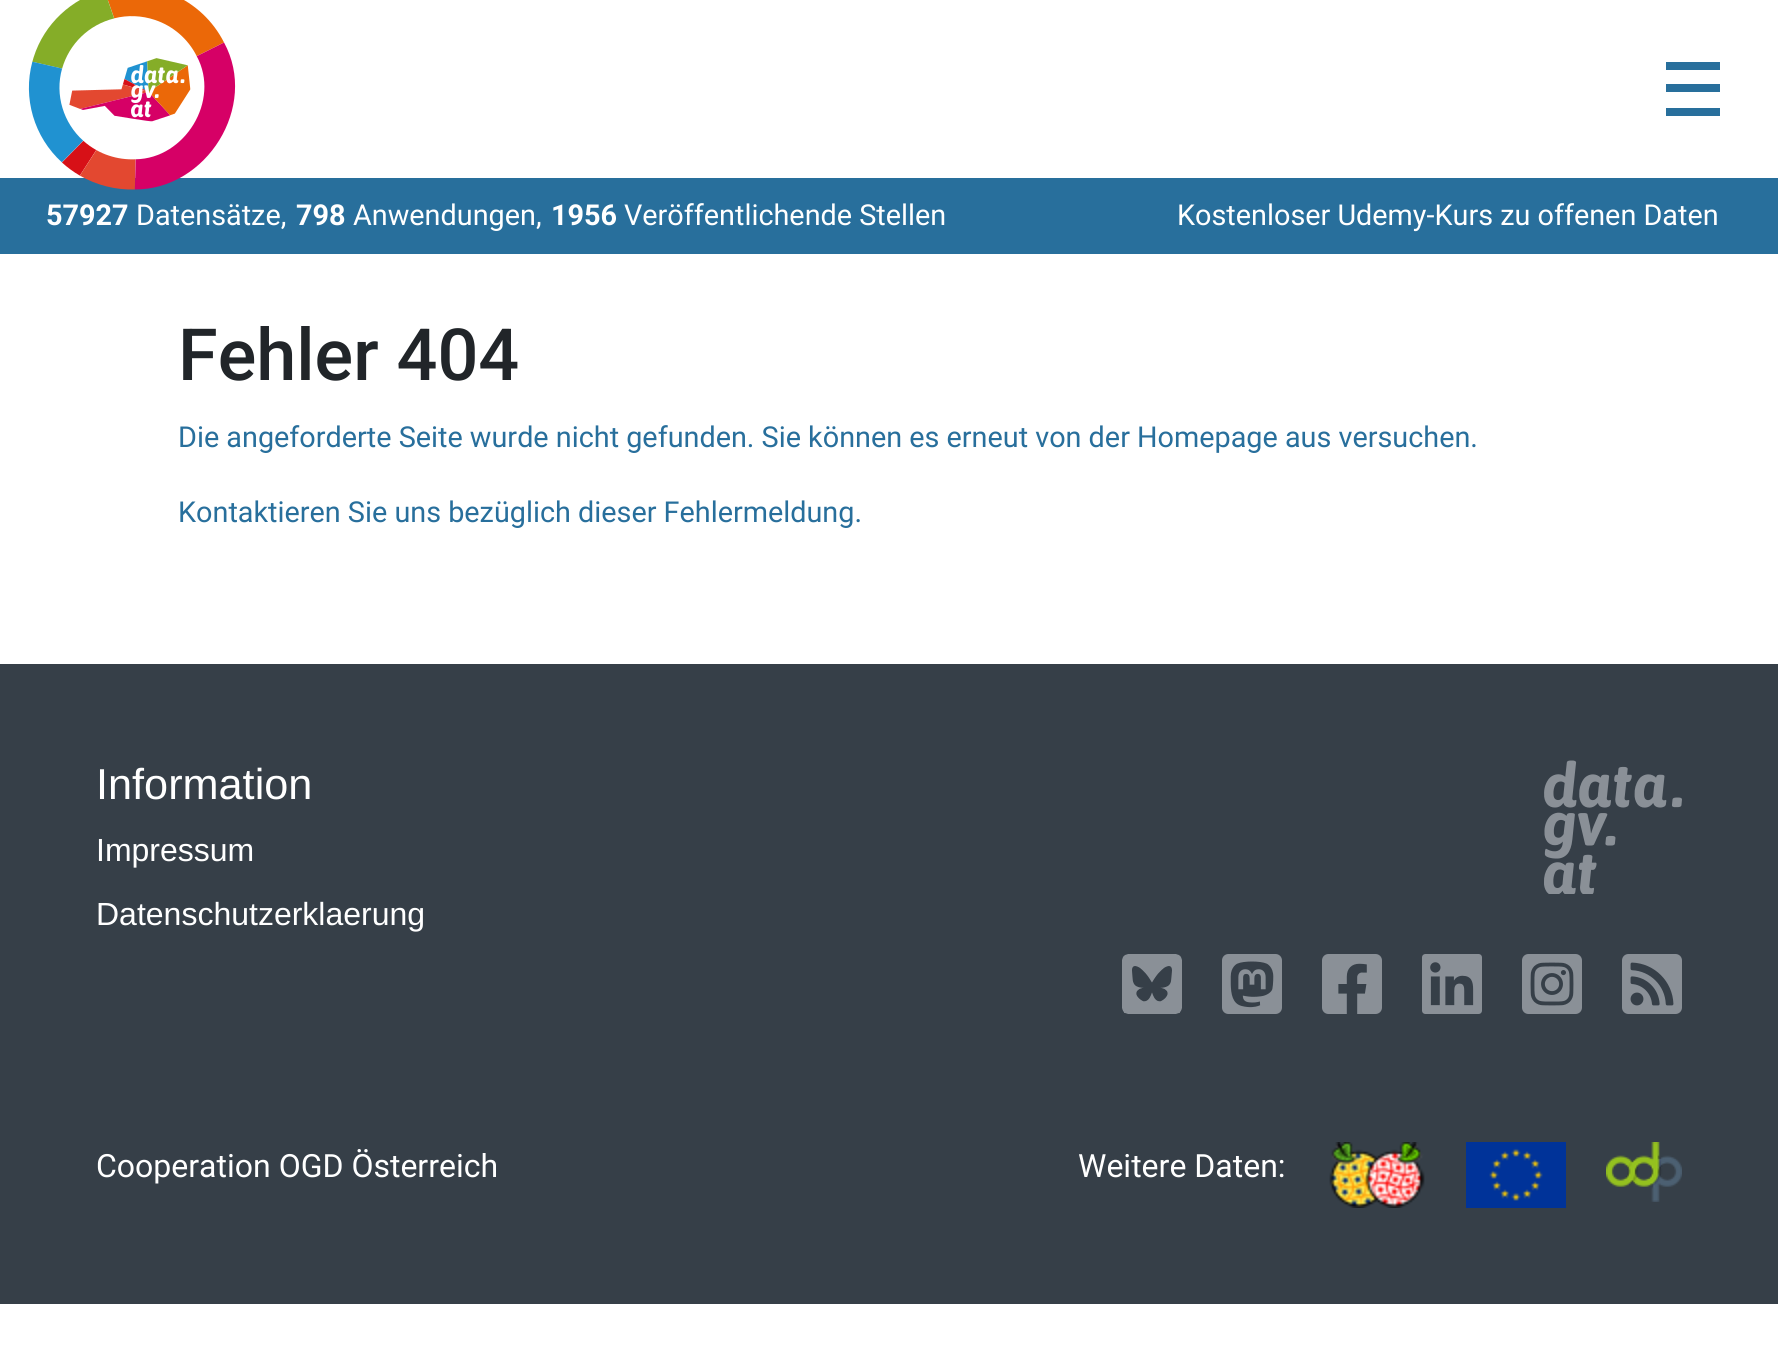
#include <cairo/cairo.h>
#include <math.h>
#include <stddef.h>


static void draw_image(cairo_t *cr, const char *path, double x, double y, double w, double h) {
  cairo_surface_t *image = cairo_image_surface_create_from_png(path);
  cairo_save(cr);
  cairo_set_source_surface(cr, image, x, y);
  cairo_rectangle(cr, x, y, w, h);
  cairo_fill(cr);
  cairo_restore(cr);
  cairo_surface_destroy(image);
}

static void draw(cairo_t *cr) {
  cairo_set_source_rgb(cr, 1, 1, 1);
  cairo_paint(cr);
  cairo_set_source_rgb(cr, 40 / 255.0, 111 / 255.0, 156 / 255.0);
  cairo_rectangle(cr, 0, 178, 1778, 76);
  cairo_fill(cr);
  draw_image(cr, "images/1.png", 28, 0, 208, 190);
  cairo_rectangle(cr, 1666, 62, 54, 8);
  cairo_fill(cr);
  cairo_rectangle(cr, 1666, 108, 54, 8);
  cairo_fill(cr);
  cairo_rectangle(cr, 1666, 84, 54, 8);
  cairo_fill(cr);
  cairo_set_source_rgb(cr, 54 / 255.0, 63 / 255.0, 72 / 255.0);
  cairo_rectangle(cr, 0, 664, 1778, 640);
  cairo_fill(cr);
  draw_image(cr, "images/2.png", 1544, 760, 138, 134);
  draw_image(cr, "images/3.png", 1122, 954, 60, 60);
  draw_image(cr, "images/4.png", 1222, 954, 60, 60);
  draw_image(cr, "images/5.png", 1322, 954, 60, 60);
  draw_image(cr, "images/6.png", 1422, 954, 60, 60);
  draw_image(cr, "images/7.png", 1522, 954, 60, 60);
  draw_image(cr, "images/8.png", 1622, 954, 60, 60);
  draw_image(cr, "images/9.png", 1329, 1142, 96, 66);
  draw_image(cr, "images/10.png", 1466, 1142, 100, 66);
  draw_image(cr, "images/11.png", 1606, 1142, 76, 60);
  cairo_select_font_face(cr, "Roboto", CAIRO_FONT_SLANT_NORMAL, CAIRO_FONT_WEIGHT_BOLD);
  cairo_set_font_size(cr, 28.8);
  cairo_set_source_rgb(cr, 1, 1, 1);
  cairo_move_to(cr, 46, 225);
  cairo_show_text(cr, "57927");
  cairo_select_font_face(cr, "Roboto", CAIRO_FONT_SLANT_NORMAL, CAIRO_FONT_WEIGHT_NORMAL);
  cairo_move_to(cr, 136, 225);
  cairo_show_text(cr, "Datensätze,");
  cairo_select_font_face(cr, "Roboto", CAIRO_FONT_SLANT_NORMAL, CAIRO_FONT_WEIGHT_BOLD);
  cairo_move_to(cr, 296, 225);
  cairo_show_text(cr, "798");
  cairo_select_font_face(cr, "Roboto", CAIRO_FONT_SLANT_NORMAL, CAIRO_FONT_WEIGHT_NORMAL);
  cairo_move_to(cr, 353, 225);
  cairo_show_text(cr, "Anwendungen,");
  cairo_select_font_face(cr, "Roboto", CAIRO_FONT_SLANT_NORMAL, CAIRO_FONT_WEIGHT_BOLD);
  cairo_move_to(cr, 551, 225);
  cairo_show_text(cr, "1956");
  cairo_select_font_face(cr, "Roboto", CAIRO_FONT_SLANT_NORMAL, CAIRO_FONT_WEIGHT_NORMAL);
  cairo_move_to(cr, 624, 225);
  cairo_show_text(cr, "Veröffentlichende Stellen");
  cairo_move_to(cr, 1177, 225);
  cairo_show_text(cr, "Kostenloser Udemy-Kurs zu offenen Daten");
  cairo_select_font_face(cr, "Roboto Medium", CAIRO_FONT_SLANT_NORMAL, CAIRO_FONT_WEIGHT_NORMAL);
  cairo_set_font_size(cr, 72);
  cairo_set_source_rgb(cr, 33 / 255.0, 37 / 255.0, 41 / 255.0);
  cairo_move_to(cr, 178, 380);
  cairo_show_text(cr, "Fehler 404");
  cairo_select_font_face(cr, "Roboto", CAIRO_FONT_SLANT_NORMAL, CAIRO_FONT_WEIGHT_NORMAL);
  cairo_set_font_size(cr, 28.8);
  cairo_set_source_rgb(cr, 40 / 255.0, 111 / 255.0, 156 / 255.0);
  cairo_move_to(cr, 178, 447);
  cairo_show_text(cr, "Die angeforderte Seite wurde nicht gefunden. Sie können es erneut von der Homepage aus versuchen.");
  cairo_move_to(cr, 178, 522);
  cairo_show_text(cr, "Kontaktieren Sie uns bezüglich dieser Fehlermeldung.");
  cairo_select_font_face(cr, "Liberation Sans", CAIRO_FONT_SLANT_NORMAL, CAIRO_FONT_WEIGHT_NORMAL);
  cairo_set_font_size(cr, 43.25);
  cairo_set_source_rgb(cr, 1, 1, 1);
  cairo_move_to(cr, 96, 799);
  cairo_show_text(cr, "Information");
  cairo_set_font_size(cr, 32);
  cairo_move_to(cr, 96, 861);
  cairo_show_text(cr, "Impressum");
  cairo_move_to(cr, 96, 925);
  cairo_show_text(cr, "Datenschutzerklaerung");
  cairo_select_font_face(cr, "Roboto", CAIRO_FONT_SLANT_NORMAL, CAIRO_FONT_WEIGHT_NORMAL);
  cairo_move_to(cr, 96, 1177);
  cairo_show_text(cr, "Cooperation OGD Österreich");
  cairo_move_to(cr, 1078, 1177);
  cairo_show_text(cr, "Weitere Daten:");
}

int main(void) {
  cairo_surface_t *surface = cairo_image_surface_create(CAIRO_FORMAT_RGB24, 1778, 1347);
  cairo_t *cr = cairo_create(surface);
  cairo_font_options_t *options = cairo_font_options_create();
  cairo_font_options_set_hint_metrics(options, CAIRO_HINT_METRICS_OFF);
  cairo_font_options_set_hint_style(options, CAIRO_HINT_STYLE_NONE);
  cairo_set_font_options(cr, options);
  cairo_set_miter_limit(cr, 4);
  draw(cr);
  cairo_surface_write_to_png(surface, "out.png");
  cairo_font_options_destroy(options);
  cairo_destroy(cr);
  cairo_surface_destroy(surface);
  return 0;
}
